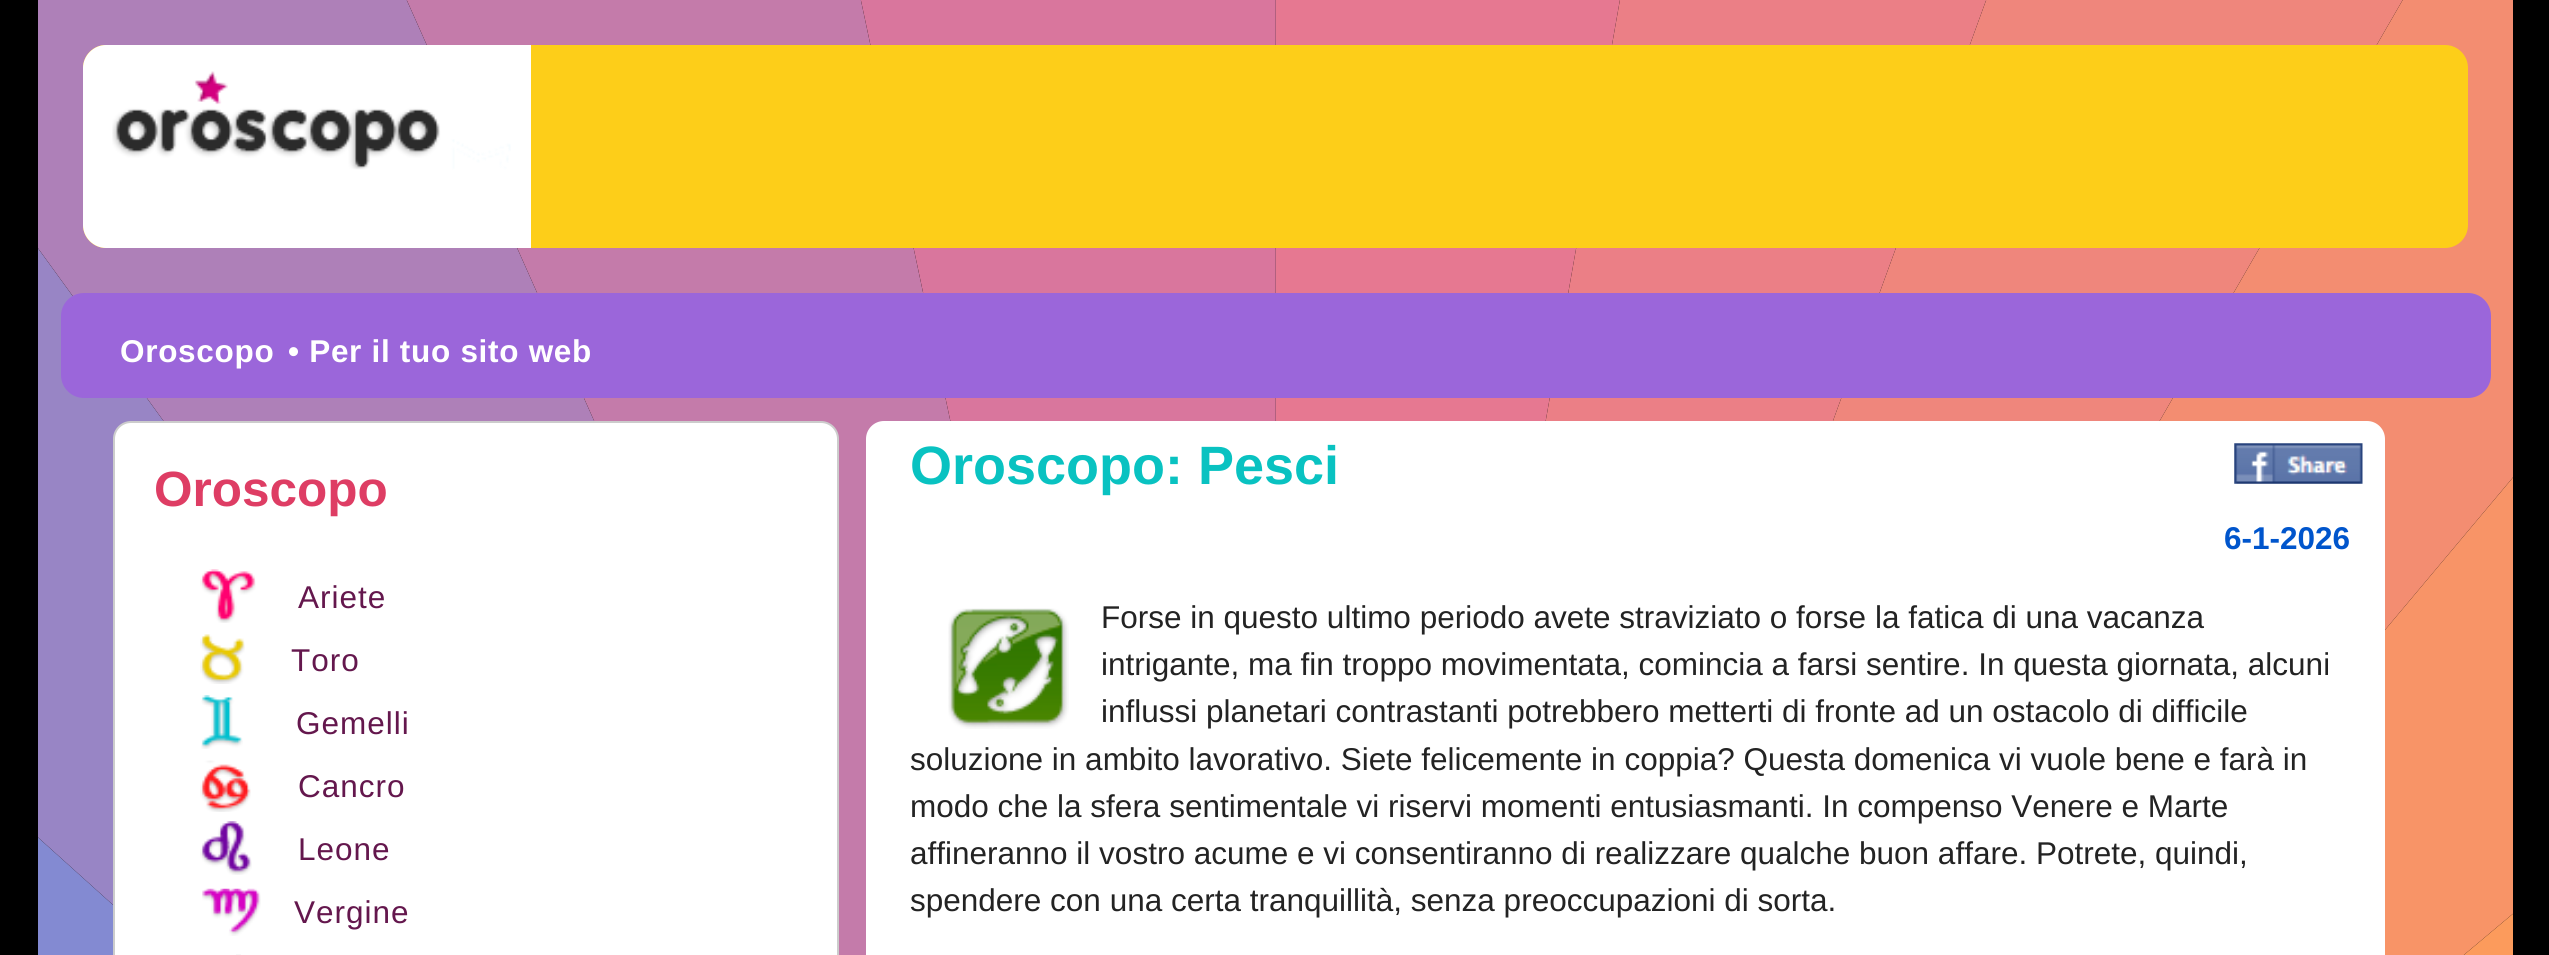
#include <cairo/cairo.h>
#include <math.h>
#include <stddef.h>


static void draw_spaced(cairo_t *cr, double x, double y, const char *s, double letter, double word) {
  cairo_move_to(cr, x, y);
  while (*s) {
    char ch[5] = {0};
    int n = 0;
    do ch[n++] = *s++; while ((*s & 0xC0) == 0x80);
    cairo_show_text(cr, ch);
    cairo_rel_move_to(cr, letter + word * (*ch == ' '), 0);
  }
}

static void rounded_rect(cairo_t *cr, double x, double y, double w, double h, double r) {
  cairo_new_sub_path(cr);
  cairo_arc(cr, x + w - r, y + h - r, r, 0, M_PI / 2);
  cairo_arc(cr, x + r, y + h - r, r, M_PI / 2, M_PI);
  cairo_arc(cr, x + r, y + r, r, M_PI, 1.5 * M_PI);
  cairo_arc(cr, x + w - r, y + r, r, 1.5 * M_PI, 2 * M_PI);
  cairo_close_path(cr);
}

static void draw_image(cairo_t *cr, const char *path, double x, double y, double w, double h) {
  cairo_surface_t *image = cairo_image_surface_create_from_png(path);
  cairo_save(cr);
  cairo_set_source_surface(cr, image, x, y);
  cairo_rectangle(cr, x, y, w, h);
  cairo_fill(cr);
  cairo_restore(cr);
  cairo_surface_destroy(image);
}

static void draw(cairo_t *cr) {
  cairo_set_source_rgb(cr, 0, 0, 0);
  cairo_paint(cr);
  draw_image(cr, "images/1.png", 38, 0, 2475, 955);
  cairo_set_source_rgb(cr, 253 / 255.0, 206 / 255.0, 25 / 255.0);
  rounded_rect(cr, 83, 45, 2385, 203, 23);
  cairo_fill(cr);
  cairo_set_source_rgb(cr, 1, 1, 1);
  cairo_new_path(cr);
  cairo_move_to(cr, 106, 45);
  cairo_line_to(cr, 531, 45);
  cairo_line_to(cr, 531, 248);
  cairo_line_to(cr, 106, 248);
  cairo_curve_to(cr, 93.5, 248, 83, 237.5, 83, 225);
  cairo_line_to(cr, 83, 68);
  cairo_curve_to(cr, 83, 55.5, 93.5, 45, 106, 45);
  cairo_close_path(cr);
  cairo_fill(cr);
  draw_image(cr, "images/2.png", 112, 71, 399, 99);
  cairo_set_source_rgb(cr, 155 / 255.0, 102 / 255.0, 218 / 255.0);
  rounded_rect(cr, 61, 293, 2430, 105, 23);
  cairo_fill(cr);
  cairo_set_source_rgb(cr, 1, 1, 1);
  rounded_rect(cr, 114, 422, 724, 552, 17);
  cairo_fill_preserve(cr);
  cairo_set_source_rgb(cr, 204 / 255.0, 204 / 255.0, 204 / 255.0);
  cairo_stroke(cr);
  draw_image(cr, "images/3.png", 200, 569, 56, 54);
  draw_image(cr, "images/4.png", 200, 634, 45, 50);
  draw_image(cr, "images/5.png", 201, 695, 42, 54);
  draw_image(cr, "images/6.png", 200, 760, 51, 52);
  draw_image(cr, "images/7.png", 200, 821, 52, 54);
  draw_image(cr, "images/8.png", 202, 888, 59, 48);
  cairo_set_source_rgb(cr, 247 / 255.0, 247 / 255.0, 247 / 255.0);
  cairo_rectangle(cr, 236, 954, 5, 1);
  cairo_fill(cr);
  cairo_set_source_rgb(cr, 1, 1, 1);
  rounded_rect(cr, 866, 421, 1519, 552, 18);
  cairo_fill(cr);
  draw_image(cr, "images/9.png", 2234, 443, 129, 41);
  draw_image(cr, "images/10.png", 948, 608, 121, 121);
  cairo_select_font_face(cr, "Liberation Sans", CAIRO_FONT_SLANT_NORMAL, CAIRO_FONT_WEIGHT_BOLD);
  cairo_set_font_size(cr, 31.5);
  draw_spaced(cr, 120, 362, "Oroscopo", 0.7, 0);
  draw_spaced(cr, 288, 362, "• Per il tuo sito web", 0.7, 0);
  cairo_set_font_size(cr, 49.5);
  cairo_set_source_rgb(cr, 222 / 255.0, 61 / 255.0, 100 / 255.0);
  cairo_move_to(cr, 154, 506);
  cairo_show_text(cr, "Oroscopo");
  cairo_select_font_face(cr, "Liberation Sans", CAIRO_FONT_SLANT_NORMAL, CAIRO_FONT_WEIGHT_NORMAL);
  cairo_set_font_size(cr, 31.5);
  cairo_set_source_rgb(cr, 100 / 255.0, 23 / 255.0, 77 / 255.0);
  draw_spaced(cr, 298, 608, "Ariete", 1, 0);
  draw_spaced(cr, 291, 671, "Toro", 1, 0);
  draw_spaced(cr, 296, 734, "Gemelli", 1, 0);
  draw_spaced(cr, 298, 797, "Cancro", 1, 0);
  draw_spaced(cr, 298, 860, "Leone", 1, 0);
  draw_spaced(cr, 294, 923, "Vergine", 1, 0);
  cairo_select_font_face(cr, "Liberation Sans", CAIRO_FONT_SLANT_NORMAL, CAIRO_FONT_WEIGHT_BOLD);
  cairo_set_font_size(cr, 54);
  cairo_set_source_rgb(cr, 9 / 255.0, 194 / 255.0, 193 / 255.0);
  cairo_move_to(cr, 910, 484);
  cairo_show_text(cr, "Oroscopo: Pesci");
  cairo_set_font_size(cr, 31.5);
  cairo_set_source_rgb(cr, 0, 85 / 255.0, 204 / 255.0);
  cairo_move_to(cr, 2224, 549);
  cairo_show_text(cr, "6-1-2026");
  cairo_select_font_face(cr, "Liberation Sans", CAIRO_FONT_SLANT_NORMAL, CAIRO_FONT_WEIGHT_NORMAL);
  cairo_set_source_rgb(cr, 35 / 255.0, 35 / 255.0, 35 / 255.0);
  cairo_move_to(cr, 1101, 628);
  cairo_show_text(cr, "Forse in questo ultimo periodo avete straviziato o forse la fatica di una vacanza");
  cairo_move_to(cr, 1101, 675);
  cairo_show_text(cr, "intrigante, ma fin troppo movimentata, comincia a farsi sentire. In questa giornata, alcuni");
  cairo_move_to(cr, 1101, 722);
  cairo_show_text(cr, "influssi planetari contrastanti potrebbero metterti di fronte ad un ostacolo di difficile");
  cairo_move_to(cr, 910, 770);
  cairo_show_text(cr, "soluzione in ambito lavorativo. Siete felicemente in coppia? Questa domenica vi vuole bene e farà in");
  cairo_move_to(cr, 910, 817);
  cairo_show_text(cr, "modo che la sfera sentimentale vi riservi momenti entusiasmanti. In compenso Venere e Marte");
  cairo_move_to(cr, 910, 864);
  cairo_show_text(cr, "affineranno il vostro acume e vi consentiranno di realizzare qualche buon affare. Potrete, quindi,");
  cairo_move_to(cr, 910, 911);
  cairo_show_text(cr, "spendere con una certa tranquillità, senza preoccupazioni di sorta.");
}

int main(void) {
  cairo_surface_t *surface = cairo_image_surface_create(CAIRO_FORMAT_RGB24, 2549, 955);
  cairo_t *cr = cairo_create(surface);
  cairo_font_options_t *options = cairo_font_options_create();
  cairo_font_options_set_hint_metrics(options, CAIRO_HINT_METRICS_OFF);
  cairo_font_options_set_hint_style(options, CAIRO_HINT_STYLE_NONE);
  cairo_set_font_options(cr, options);
  cairo_set_miter_limit(cr, 4);
  draw(cr);
  cairo_surface_write_to_png(surface, "out.png");
  cairo_font_options_destroy(options);
  cairo_destroy(cr);
  cairo_surface_destroy(surface);
  return 0;
}
